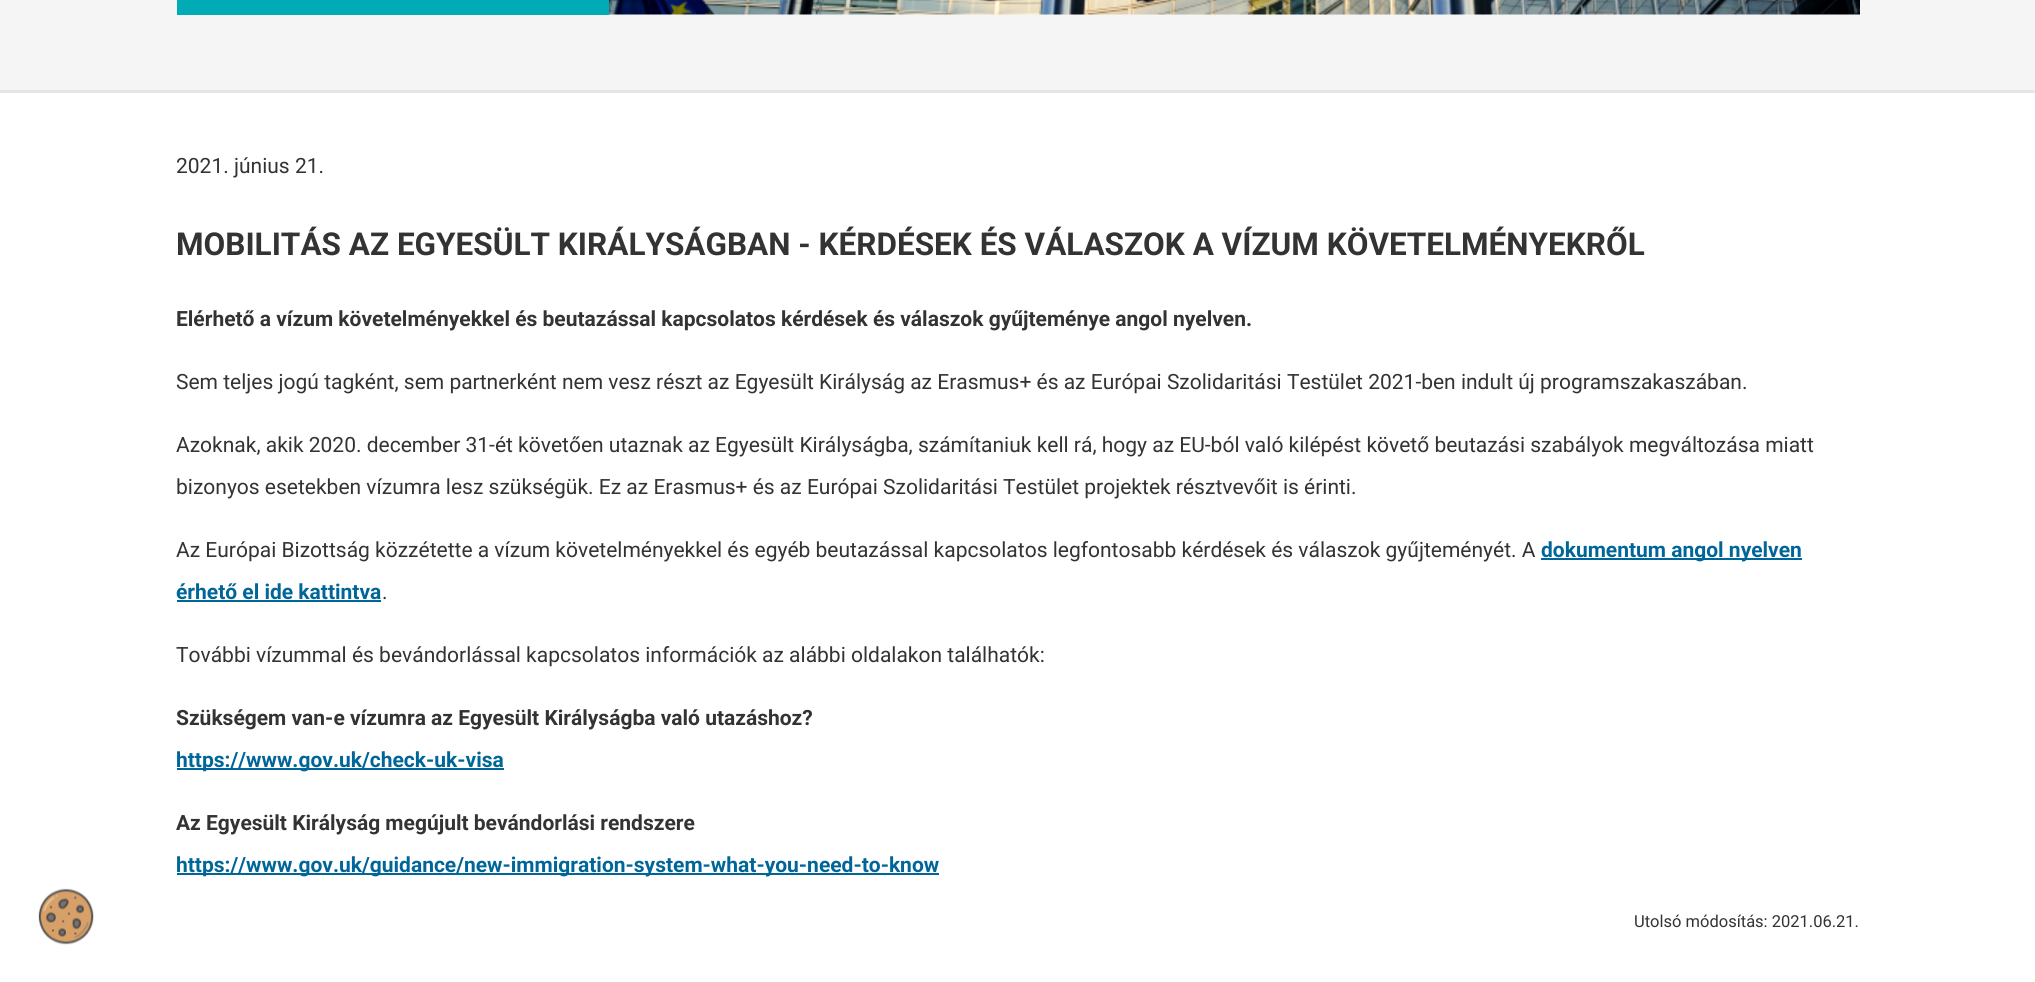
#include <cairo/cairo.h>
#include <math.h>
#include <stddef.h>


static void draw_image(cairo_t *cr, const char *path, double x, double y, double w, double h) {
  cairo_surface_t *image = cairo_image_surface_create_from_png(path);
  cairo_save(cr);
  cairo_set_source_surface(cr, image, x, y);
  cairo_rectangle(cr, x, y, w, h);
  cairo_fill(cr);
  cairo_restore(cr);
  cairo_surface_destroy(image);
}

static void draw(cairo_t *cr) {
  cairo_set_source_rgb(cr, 1, 1, 1);
  cairo_paint(cr);
  cairo_set_source_rgb(cr, 245 / 255.0, 245 / 255.0, 245 / 255.0);
  cairo_rectangle(cr, 0, 0, 2035, 90);
  cairo_fill(cr);
  cairo_set_source_rgb(cr, 229 / 255.0, 229 / 255.0, 229 / 255.0);
  cairo_rectangle(cr, 0, 90, 2035, 3);
  cairo_fill(cr);
  draw_image(cr, "images/1.png", 609, 0, 1251, 15);
  cairo_set_source_rgb(cr, 0, 171 / 255.0, 181 / 255.0);
  cairo_rectangle(cr, 177, 0, 432, 15);
  cairo_fill(cr);
  draw_image(cr, "images/2.png", 38, 888, 56, 57);
  cairo_set_source_rgb(cr, 0, 102 / 255.0, 153 / 255.0);
  cairo_rectangle(cr, 1541, 558, 261, 2);
  cairo_fill(cr);
  cairo_rectangle(cr, 177, 600, 204, 2);
  cairo_fill(cr);
  cairo_rectangle(cr, 177, 768, 327, 2);
  cairo_fill(cr);
  cairo_rectangle(cr, 177, 873, 762, 2);
  cairo_fill(cr);
  cairo_select_font_face(cr, "Roboto", CAIRO_FONT_SLANT_NORMAL, CAIRO_FONT_WEIGHT_NORMAL);
  cairo_set_font_size(cr, 21);
  cairo_set_source_rgb(cr, 51 / 255.0, 51 / 255.0, 51 / 255.0);
  cairo_move_to(cr, 176, 173);
  cairo_show_text(cr, "2021. június 21.");
  cairo_select_font_face(cr, "Roboto", CAIRO_FONT_SLANT_NORMAL, CAIRO_FONT_WEIGHT_BOLD);
  cairo_set_font_size(cr, 31.5);
  cairo_move_to(cr, 176, 255);
  cairo_show_text(cr, "MOBILITÁS AZ EGYESÜLT KIRÁLYSÁGBAN - KÉRDÉSEK ÉS VÁLASZOK A VÍZUM KÖVETELMÉNYEKRŐL");
  cairo_set_font_size(cr, 21);
  cairo_move_to(cr, 176, 326);
  cairo_show_text(cr, "Elérhető a vízum követelményekkel és beutazással kapcsolatos kérdések és válaszok gyűjteménye angol nyelven.");
  cairo_select_font_face(cr, "Roboto", CAIRO_FONT_SLANT_NORMAL, CAIRO_FONT_WEIGHT_NORMAL);
  cairo_move_to(cr, 176, 389);
  cairo_show_text(cr, "Sem teljes jogú tagként, sem partnerként nem vesz részt az Egyesült Királyság az Erasmus+ és az Európai Szolidaritási Testület 2021-ben indult új programszakaszában.");
  cairo_move_to(cr, 176, 452);
  cairo_show_text(cr, "Azoknak, akik 2020. december 31-ét követően utaznak az Egyesült Királyságba, számítaniuk kell rá, hogy az EU-ból való kilépést követő beutazási szabályok megváltozása miatt");
  cairo_move_to(cr, 176, 494);
  cairo_show_text(cr, "bizonyos esetekben vízumra lesz szükségük. Ez az Erasmus+ és az Európai Szolidaritási Testület projektek résztvevőit is érinti.");
  cairo_move_to(cr, 176, 557);
  cairo_show_text(cr, "Az Európai Bizottság közzétette a vízum követelményekkel és egyéb beutazással kapcsolatos legfontosabb kérdések és válaszok gyűjteményét. A");
  cairo_select_font_face(cr, "Roboto", CAIRO_FONT_SLANT_NORMAL, CAIRO_FONT_WEIGHT_BOLD);
  cairo_set_source_rgb(cr, 0, 102 / 255.0, 153 / 255.0);
  cairo_move_to(cr, 1541, 557);
  cairo_show_text(cr, "dokumentum angol nyelven");
  cairo_move_to(cr, 176, 599);
  cairo_show_text(cr, "érhető el ide kattintva");
  cairo_select_font_face(cr, "Roboto", CAIRO_FONT_SLANT_NORMAL, CAIRO_FONT_WEIGHT_NORMAL);
  cairo_set_source_rgb(cr, 51 / 255.0, 51 / 255.0, 51 / 255.0);
  cairo_move_to(cr, 382, 599);
  cairo_show_text(cr, ".");
  cairo_move_to(cr, 176, 662);
  cairo_show_text(cr, "További vízummal és bevándorlással kapcsolatos információk az alábbi oldalakon találhatók:");
  cairo_select_font_face(cr, "Roboto", CAIRO_FONT_SLANT_NORMAL, CAIRO_FONT_WEIGHT_BOLD);
  cairo_move_to(cr, 176, 725);
  cairo_show_text(cr, "Szükségem van-e vízumra az Egyesült Királyságba való utazáshoz?");
  cairo_set_source_rgb(cr, 0, 102 / 255.0, 153 / 255.0);
  cairo_move_to(cr, 176, 767);
  cairo_show_text(cr, "https://www.gov.uk/check-uk-visa");
  cairo_set_source_rgb(cr, 51 / 255.0, 51 / 255.0, 51 / 255.0);
  cairo_move_to(cr, 176, 830);
  cairo_show_text(cr, "Az Egyesült Királyság megújult bevándorlási rendszere");
  cairo_set_source_rgb(cr, 0, 102 / 255.0, 153 / 255.0);
  cairo_move_to(cr, 176, 872);
  cairo_show_text(cr, "https://www.gov.uk/guidance/new-immigration-system-what-you-need-to-know");
  cairo_select_font_face(cr, "Roboto", CAIRO_FONT_SLANT_NORMAL, CAIRO_FONT_WEIGHT_NORMAL);
  cairo_set_font_size(cr, 16.5);
  cairo_set_source_rgb(cr, 51 / 255.0, 51 / 255.0, 51 / 255.0);
  cairo_move_to(cr, 1634, 927);
  cairo_show_text(cr, "Utolsó módosítás: 2021.06.21.");
}

int main(void) {
  cairo_surface_t *surface = cairo_image_surface_create(CAIRO_FORMAT_RGB24, 2035, 982);
  cairo_t *cr = cairo_create(surface);
  cairo_font_options_t *options = cairo_font_options_create();
  cairo_font_options_set_hint_metrics(options, CAIRO_HINT_METRICS_OFF);
  cairo_font_options_set_hint_style(options, CAIRO_HINT_STYLE_NONE);
  cairo_set_font_options(cr, options);
  cairo_set_miter_limit(cr, 4);
  draw(cr);
  cairo_surface_write_to_png(surface, "out.png");
  cairo_font_options_destroy(options);
  cairo_destroy(cr);
  cairo_surface_destroy(surface);
  return 0;
}
